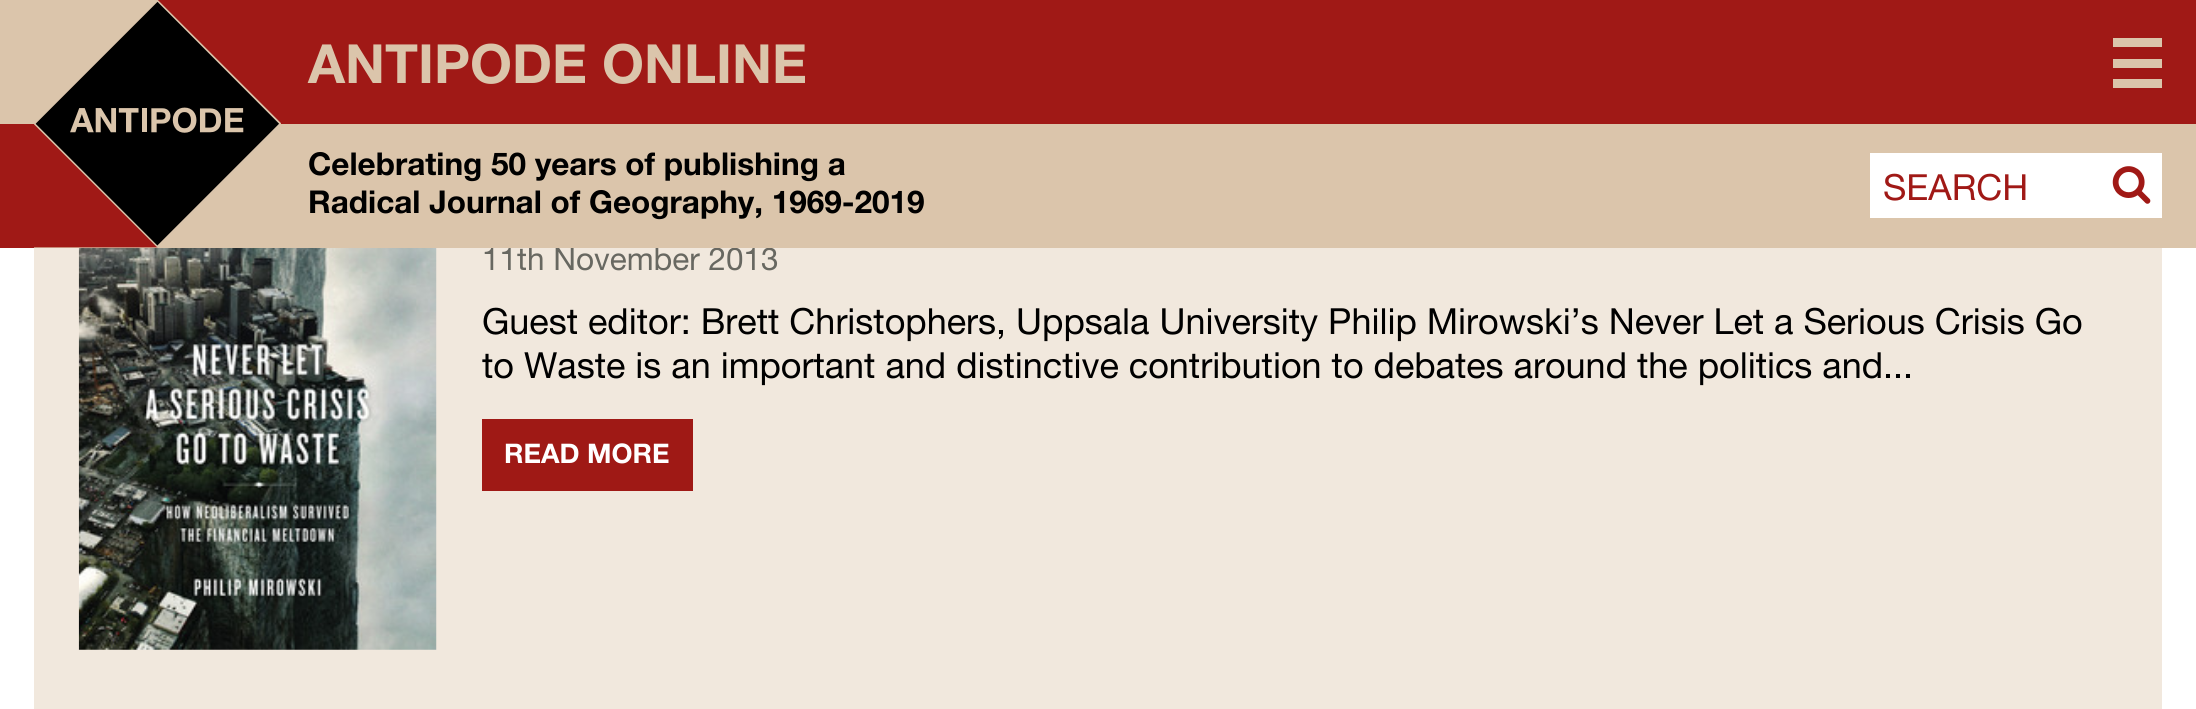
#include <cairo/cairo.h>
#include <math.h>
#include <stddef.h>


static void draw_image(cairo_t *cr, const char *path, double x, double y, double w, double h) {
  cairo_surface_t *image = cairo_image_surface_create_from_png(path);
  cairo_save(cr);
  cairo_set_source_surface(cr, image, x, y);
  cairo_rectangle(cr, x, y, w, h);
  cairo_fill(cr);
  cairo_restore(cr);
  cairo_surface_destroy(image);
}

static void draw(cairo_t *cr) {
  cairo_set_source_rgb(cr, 1, 1, 1);
  cairo_paint(cr);
  cairo_set_source_rgb(cr, 219 / 255.0, 197 / 255.0, 171 / 255.0);
  cairo_rectangle(cr, 0, 0, 34, 124);
  cairo_fill(cr);
  cairo_set_source_rgb(cr, 160 / 255.0, 25 / 255.0, 22 / 255.0);
  cairo_rectangle(cr, 0, 124, 34, 124);
  cairo_fill(cr);
  cairo_rectangle(cr, 35, 0, 2161, 124);
  cairo_fill(cr);
  cairo_set_source_rgb(cr, 219 / 255.0, 197 / 255.0, 171 / 255.0);
  cairo_rectangle(cr, 2113, 59, 49, 9);
  cairo_fill(cr);
  cairo_rectangle(cr, 2113, 38, 49, 9);
  cairo_fill(cr);
  cairo_rectangle(cr, 2113, 79, 49, 9);
  cairo_fill(cr);
  cairo_set_source_rgb(cr, 241 / 255.0, 232 / 255.0, 221 / 255.0);
  cairo_rectangle(cr, 34, 248, 2128, 461);
  cairo_fill(cr);
  draw_image(cr, "images/3.png", 78, 248, 359, 402);
  cairo_set_source_rgb(cr, 159 / 255.0, 25 / 255.0, 21 / 255.0);
  cairo_rectangle(cr, 482, 419, 211, 72);
  cairo_fill(cr);
  cairo_select_font_face(cr, "Helvetica Neue", CAIRO_FONT_SLANT_NORMAL, CAIRO_FONT_WEIGHT_BOLD);
  cairo_set_font_size(cr, 54);
  cairo_set_source_rgb(cr, 219 / 255.0, 197 / 255.0, 171 / 255.0);
  cairo_move_to(cr, 308, 83);
  cairo_show_text(cr, "ANTIPODE ONLINE");
  cairo_select_font_face(cr, "Helvetica Neue", CAIRO_FONT_SLANT_NORMAL, CAIRO_FONT_WEIGHT_NORMAL);
  cairo_set_font_size(cr, 31.5);
  cairo_set_source_rgb(cr, 104 / 255.0, 104 / 255.0, 97 / 255.0);
  cairo_move_to(cr, 482, 270);
  cairo_show_text(cr, "11th November 2013");
  cairo_set_source_rgb(cr, 219 / 255.0, 197 / 255.0, 171 / 255.0);
  cairo_rectangle(cr, 34, 124, 2162, 124);
  cairo_fill(cr);
  cairo_set_source_rgb(cr, 1, 1, 1);
  cairo_rectangle(cr, 1870, 153, 292, 65);
  cairo_fill(cr);
  draw_image(cr, "images/2.png", 2112, 166, 39, 38);
  cairo_set_font_size(cr, 36);
  cairo_set_source_rgb(cr, 160 / 255.0, 25 / 255.0, 22 / 255.0);
  cairo_move_to(cr, 1883, 200);
  cairo_show_text(cr, "SEARCH");
  draw_image(cr, "images/1.png", 34, 0, 247, 248);
  cairo_select_font_face(cr, "Helvetica Neue", CAIRO_FONT_SLANT_NORMAL, CAIRO_FONT_WEIGHT_BOLD);
  cairo_set_font_size(cr, 31.5);
  cairo_set_source_rgb(cr, 0, 0, 0);
  cairo_move_to(cr, 308, 213);
  cairo_show_text(cr, "Radical Journal of Geography, 1969-2019");
  cairo_move_to(cr, 308, 175);
  cairo_show_text(cr, "Celebrating 50 years of publishing a");
  cairo_select_font_face(cr, "Helvetica Neue", CAIRO_FONT_SLANT_NORMAL, CAIRO_FONT_WEIGHT_NORMAL);
  cairo_set_font_size(cr, 36);
  cairo_move_to(cr, 482, 334);
  cairo_show_text(cr, "Guest editor: Brett Christophers, Uppsala University Philip Mirowski’s Never Let a Serious Crisis Go");
  cairo_save(cr);
  cairo_rectangle(cr, 482, 110, 1635, 381);
  cairo_clip(cr);
  cairo_move_to(cr, 482, 378);
  cairo_show_text(cr, "to Waste is an important and distinctive contribution to debates around the politics and...");
  cairo_restore(cr);
  cairo_select_font_face(cr, "Helvetica Neue", CAIRO_FONT_SLANT_NORMAL, CAIRO_FONT_WEIGHT_BOLD);
  cairo_set_font_size(cr, 27);
  cairo_set_source_rgb(cr, 1, 1, 1);
  cairo_move_to(cr, 504, 463);
  cairo_show_text(cr, "READ MORE");
}

int main(void) {
  cairo_surface_t *surface = cairo_image_surface_create(CAIRO_FORMAT_RGB24, 2196, 709);
  cairo_t *cr = cairo_create(surface);
  cairo_font_options_t *options = cairo_font_options_create();
  cairo_font_options_set_hint_metrics(options, CAIRO_HINT_METRICS_OFF);
  cairo_font_options_set_hint_style(options, CAIRO_HINT_STYLE_NONE);
  cairo_set_font_options(cr, options);
  cairo_set_miter_limit(cr, 4);
  draw(cr);
  cairo_surface_write_to_png(surface, "out.png");
  cairo_font_options_destroy(options);
  cairo_destroy(cr);
  cairo_surface_destroy(surface);
  return 0;
}
